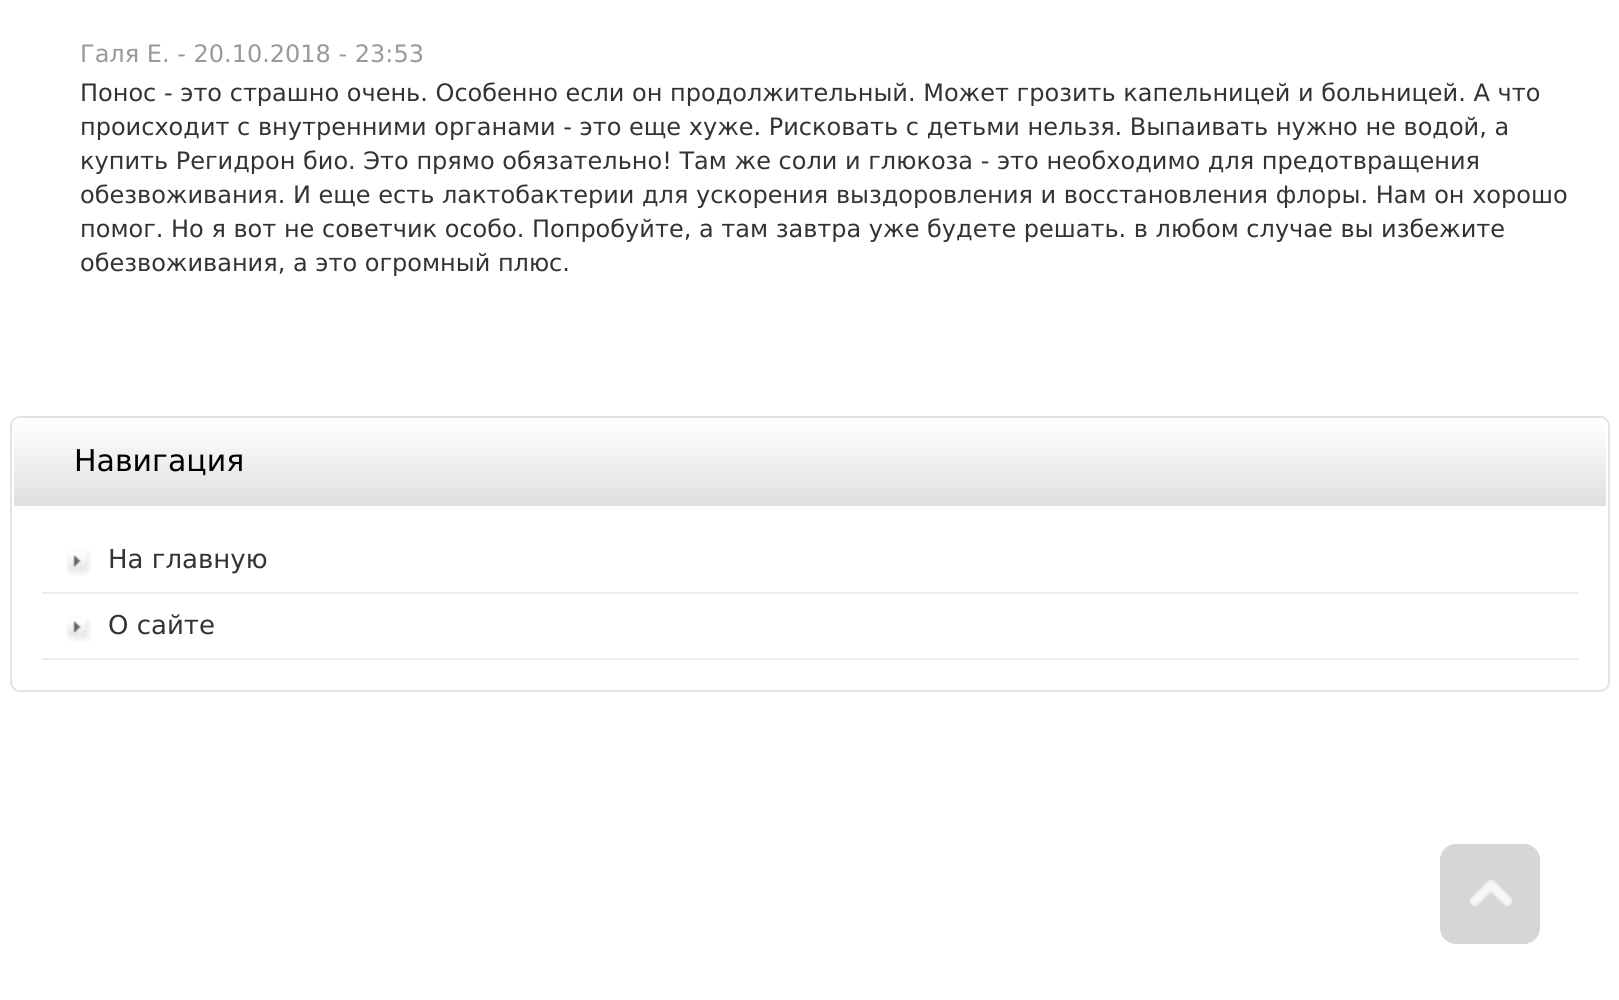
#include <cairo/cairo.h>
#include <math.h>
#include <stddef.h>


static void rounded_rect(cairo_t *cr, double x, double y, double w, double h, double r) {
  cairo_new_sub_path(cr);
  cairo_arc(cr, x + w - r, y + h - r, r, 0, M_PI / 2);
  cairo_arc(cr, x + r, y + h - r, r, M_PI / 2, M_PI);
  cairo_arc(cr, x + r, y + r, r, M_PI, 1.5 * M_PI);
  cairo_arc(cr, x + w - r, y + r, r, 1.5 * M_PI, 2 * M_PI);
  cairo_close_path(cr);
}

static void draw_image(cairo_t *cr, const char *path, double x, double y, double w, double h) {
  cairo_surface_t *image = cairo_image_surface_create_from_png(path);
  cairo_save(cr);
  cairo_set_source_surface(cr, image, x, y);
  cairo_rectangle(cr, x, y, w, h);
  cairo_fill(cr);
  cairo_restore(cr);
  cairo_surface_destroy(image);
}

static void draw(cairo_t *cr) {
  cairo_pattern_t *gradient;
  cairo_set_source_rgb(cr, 1, 1, 1);
  cairo_paint(cr);
  rounded_rect(cr, 11, 417, 1598, 274, 9);
  cairo_set_source_rgb(cr, 227 / 255.0, 227 / 255.0, 227 / 255.0);
  cairo_stroke(cr);
  cairo_save(cr);
  cairo_new_path(cr);
  cairo_move_to(cr, 20, 418);
  cairo_line_to(cr, 1600, 418);
  cairo_curve_to(cr, 1604.5, 418, 1608, 421.5, 1608, 426);
  cairo_line_to(cr, 1608, 508);
  cairo_line_to(cr, 12, 508);
  cairo_line_to(cr, 12, 426);
  cairo_curve_to(cr, 12, 421.5, 15.5, 418, 20, 418);
  cairo_close_path(cr);
  cairo_clip(cr);
  gradient = cairo_pattern_create_linear(810, 420, 810, 506);
  cairo_pattern_add_color_stop_rgba(gradient, 0, 1, 1, 1, 1);
  cairo_pattern_add_color_stop_rgba(gradient, 1, 223 / 255.0, 223 / 255.0, 223 / 255.0, 1);
  cairo_set_source(cr, gradient);
  cairo_pattern_destroy(gradient);
  cairo_rectangle(cr, 12, 420, 1596, 86);
  cairo_fill(cr);
  cairo_restore(cr);
  cairo_new_path(cr);
  cairo_move_to(cr, 20, 419);
  cairo_line_to(cr, 1600, 419);
  cairo_curve_to(cr, 1604, 419, 1607, 422, 1607, 426);
  cairo_line_to(cr, 1607, 507);
  cairo_line_to(cr, 13, 507);
  cairo_line_to(cr, 13, 426);
  cairo_curve_to(cr, 13, 422, 16, 419, 20, 419);
  cairo_close_path(cr);
  cairo_set_source_rgb(cr, 1, 1, 1);
  cairo_stroke(cr);
  cairo_set_source_rgb(cr, 236 / 255.0, 236 / 255.0, 236 / 255.0);
  cairo_rectangle(cr, 42, 592, 1536, 2);
  cairo_fill(cr);
  draw_image(cr, "images/1.png", 66, 550, 26, 26);
  cairo_rectangle(cr, 42, 658, 1536, 2);
  cairo_fill(cr);
  draw_image(cr, "images/1.png", 66, 616, 26, 26);
  cairo_set_source_rgb(cr, 214 / 255.0, 214 / 255.0, 214 / 255.0);
  rounded_rect(cr, 1440, 844, 100, 100, 16);
  cairo_fill(cr);
  draw_image(cr, "images/2.png", 1470, 880, 42, 26);
  cairo_select_font_face(cr, "DejaVu Sans", CAIRO_FONT_SLANT_NORMAL, CAIRO_FONT_WEIGHT_NORMAL);
  cairo_set_font_size(cr, 24);
  cairo_set_source_rgb(cr, 153 / 255.0, 153 / 255.0, 153 / 255.0);
  cairo_move_to(cr, 80, 62);
  cairo_show_text(cr, "Галя Е. - 20.10.2018 - 23:53");
  cairo_set_source_rgb(cr, 51 / 255.0, 51 / 255.0, 51 / 255.0);
  cairo_move_to(cr, 80, 101);
  cairo_show_text(cr, "Понос - это страшно очень. Особенно если он продолжительный. Может грозить капельницей и больницей. А что");
  cairo_move_to(cr, 80, 135);
  cairo_show_text(cr, "происходит с внутренними органами - это еще хуже. Рисковать с детьми нельзя. Выпаивать нужно не водой, а");
  cairo_move_to(cr, 80, 169);
  cairo_show_text(cr, "купить Регидрон био. Это прямо обязательно! Там же соли и глюкоза - это необходимо для предотвращения");
  cairo_move_to(cr, 80, 203);
  cairo_show_text(cr, "обезвоживания. И еще есть лактобактерии для ускорения выздоровления и восстановления флоры. Нам он хорошо");
  cairo_move_to(cr, 80, 237);
  cairo_show_text(cr, "помог. Но я вот не советчик особо. Попробуйте, а там завтра уже будете решать. в любом случае вы избежите");
  cairo_move_to(cr, 80, 271);
  cairo_show_text(cr, "обезвоживания, а это огромный плюс.");
  cairo_set_font_size(cr, 30);
  cairo_set_source_rgb(cr, 0, 0, 0);
  cairo_move_to(cr, 74, 471);
  cairo_show_text(cr, "Навигация");
  cairo_set_font_size(cr, 26);
  cairo_set_source_rgb(cr, 51 / 255.0, 51 / 255.0, 51 / 255.0);
  cairo_move_to(cr, 108, 568);
  cairo_show_text(cr, "На главную");
  cairo_move_to(cr, 108, 634);
  cairo_show_text(cr, "О сайте");
}

int main(void) {
  cairo_surface_t *surface = cairo_image_surface_create(CAIRO_FORMAT_RGB24, 1619, 1000);
  cairo_t *cr = cairo_create(surface);
  cairo_font_options_t *options = cairo_font_options_create();
  cairo_font_options_set_hint_metrics(options, CAIRO_HINT_METRICS_OFF);
  cairo_font_options_set_hint_style(options, CAIRO_HINT_STYLE_NONE);
  cairo_set_font_options(cr, options);
  cairo_set_miter_limit(cr, 4);
  draw(cr);
  cairo_surface_write_to_png(surface, "out.png");
  cairo_font_options_destroy(options);
  cairo_destroy(cr);
  cairo_surface_destroy(surface);
  return 0;
}
